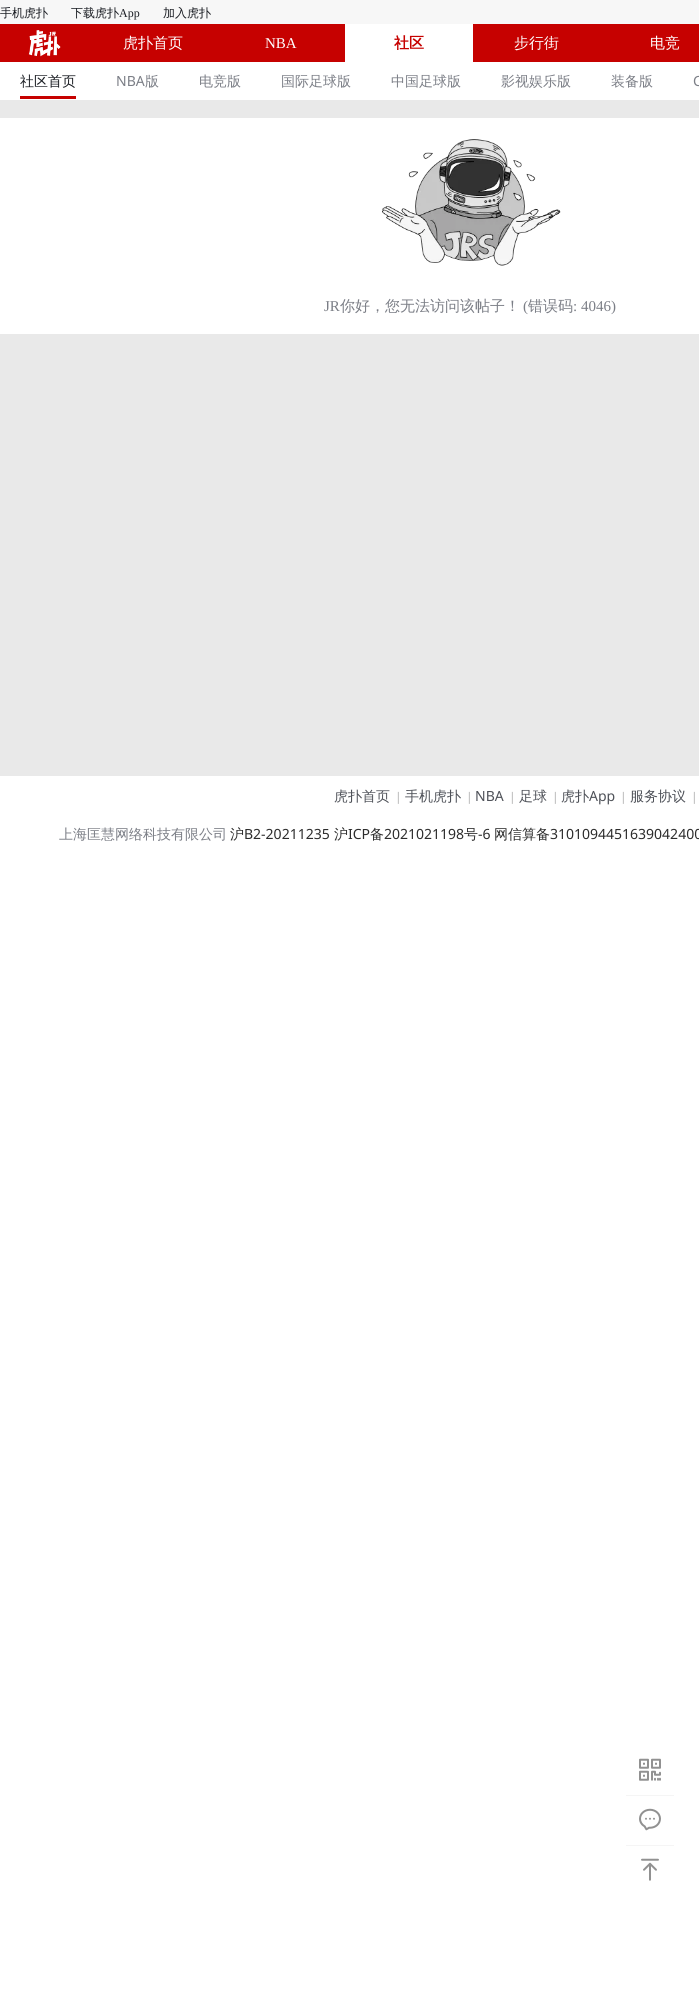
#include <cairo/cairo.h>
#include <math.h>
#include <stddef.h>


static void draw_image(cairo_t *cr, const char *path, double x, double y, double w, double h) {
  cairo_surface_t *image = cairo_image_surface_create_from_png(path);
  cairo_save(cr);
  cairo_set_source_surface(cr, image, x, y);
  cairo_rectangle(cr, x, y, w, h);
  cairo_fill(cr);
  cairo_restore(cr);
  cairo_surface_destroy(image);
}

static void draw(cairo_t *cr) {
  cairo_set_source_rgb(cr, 1, 1, 1);
  cairo_paint(cr);
  cairo_set_source_rgb(cr, 198 / 255.0, 1 / 255.0, 0);
  cairo_rectangle(cr, 0, 24, 699, 38);
  cairo_fill(cr);
  cairo_set_source_rgb(cr, 247 / 255.0, 247 / 255.0, 247 / 255.0);
  cairo_rectangle(cr, 0, 0, 699, 24);
  cairo_fill(cr);
  draw_image(cr, "images/1.png", 28, 30, 33, 27);
  cairo_set_source_rgb(cr, 1, 1, 1);
  cairo_rectangle(cr, 345, 24, 128, 38);
  cairo_fill(cr);
  cairo_set_source_rgb(cr, 198 / 255.0, 1 / 255.0, 0);
  cairo_rectangle(cr, 20, 96, 56, 3);
  cairo_fill(cr);
  cairo_set_source_rgb(cr, 233 / 255.0, 233 / 255.0, 233 / 255.0);
  cairo_rectangle(cr, 0, 100, 699, 676);
  cairo_fill(cr);
  cairo_set_source_rgb(cr, 1, 1, 1);
  cairo_rectangle(cr, 0, 118, 699, 216);
  cairo_fill(cr);
  draw_image(cr, "images/2.png", 382, 139, 179, 127);
  cairo_set_source_rgb(cr, 245 / 255.0, 245 / 255.0, 245 / 255.0);
  cairo_rectangle(cr, 626, 1795, 48, 1);
  cairo_fill(cr);
  draw_image(cr, "images/3.png", 639, 1758, 22, 23);
  cairo_rectangle(cr, 626, 1845, 48, 1);
  cairo_fill(cr);
  draw_image(cr, "images/4.png", 639, 1808, 22, 23);
  draw_image(cr, "images/5.png", 641, 1858, 18, 23);
  cairo_select_font_face(cr, "WenQuanYi Zen Hei Medium", CAIRO_FONT_SLANT_NORMAL, CAIRO_FONT_WEIGHT_NORMAL);
  cairo_set_font_size(cr, 12);
  cairo_set_source_rgb(cr, 25 / 255.0, 28 / 255.0, 34 / 255.0);
  cairo_move_to(cr, 0, 17);
  cairo_show_text(cr, "手机虎扑");
  cairo_move_to(cr, 71, 17);
  cairo_show_text(cr, "下载虎扑");
  cairo_select_font_face(cr, "Liberation Serif", CAIRO_FONT_SLANT_NORMAL, CAIRO_FONT_WEIGHT_NORMAL);
  cairo_move_to(cr, 119, 17);
  cairo_show_text(cr, "App");
  cairo_select_font_face(cr, "WenQuanYi Zen Hei Medium", CAIRO_FONT_SLANT_NORMAL, CAIRO_FONT_WEIGHT_NORMAL);
  cairo_move_to(cr, 163, 17);
  cairo_show_text(cr, "加入虎扑");
  cairo_set_font_size(cr, 15);
  cairo_set_source_rgb(cr, 1, 1, 1);
  cairo_move_to(cr, 123, 48);
  cairo_show_text(cr, "虎扑首页");
  cairo_select_font_face(cr, "Liberation Serif", CAIRO_FONT_SLANT_NORMAL, CAIRO_FONT_WEIGHT_NORMAL);
  cairo_move_to(cr, 265, 48);
  cairo_show_text(cr, "NBA");
  cairo_select_font_face(cr, "WenQuanYi Zen Hei", CAIRO_FONT_SLANT_NORMAL, CAIRO_FONT_WEIGHT_BOLD);
  cairo_set_source_rgb(cr, 198 / 255.0, 1 / 255.0, 0);
  cairo_move_to(cr, 394, 48);
  cairo_show_text(cr, "社区");
  cairo_select_font_face(cr, "WenQuanYi Zen Hei Medium", CAIRO_FONT_SLANT_NORMAL, CAIRO_FONT_WEIGHT_NORMAL);
  cairo_set_source_rgb(cr, 1, 1, 1);
  cairo_move_to(cr, 514, 48);
  cairo_show_text(cr, "步行街");
  cairo_move_to(cr, 650, 48);
  cairo_show_text(cr, "电竞");
  cairo_set_font_size(cr, 14);
  cairo_set_source_rgb(cr, 25 / 255.0, 28 / 255.0, 34 / 255.0);
  cairo_move_to(cr, 20, 86);
  cairo_show_text(cr, "社区首页");
  cairo_select_font_face(cr, "Noto Sans", CAIRO_FONT_SLANT_NORMAL, CAIRO_FONT_WEIGHT_NORMAL);
  cairo_set_source_rgb(cr, 123 / 255.0, 126 / 255.0, 134 / 255.0);
  cairo_move_to(cr, 116, 86);
  cairo_show_text(cr, "NBA");
  cairo_select_font_face(cr, "WenQuanYi Zen Hei Medium", CAIRO_FONT_SLANT_NORMAL, CAIRO_FONT_WEIGHT_NORMAL);
  cairo_move_to(cr, 145, 86);
  cairo_show_text(cr, "版");
  cairo_move_to(cr, 199, 86);
  cairo_show_text(cr, "电竞版");
  cairo_move_to(cr, 281, 86);
  cairo_show_text(cr, "国际足球版");
  cairo_move_to(cr, 391, 86);
  cairo_show_text(cr, "中国足球版");
  cairo_move_to(cr, 501, 86);
  cairo_show_text(cr, "影视娱乐版");
  cairo_move_to(cr, 611, 86);
  cairo_show_text(cr, "装备版");
  cairo_select_font_face(cr, "Noto Sans", CAIRO_FONT_SLANT_NORMAL, CAIRO_FONT_WEIGHT_NORMAL);
  cairo_move_to(cr, 693, 86);
  cairo_show_text(cr, "C");
  cairo_select_font_face(cr, "Liberation Serif", CAIRO_FONT_SLANT_NORMAL, CAIRO_FONT_WEIGHT_NORMAL);
  cairo_set_font_size(cr, 15);
  cairo_move_to(cr, 324, 311);
  cairo_show_text(cr, "JR");
  cairo_select_font_face(cr, "WenQuanYi Zen Hei Medium", CAIRO_FONT_SLANT_NORMAL, CAIRO_FONT_WEIGHT_NORMAL);
  cairo_move_to(cr, 340, 311);
  cairo_show_text(cr, "你好，您无法访问该帖子！");
  cairo_select_font_face(cr, "Liberation Serif", CAIRO_FONT_SLANT_NORMAL, CAIRO_FONT_WEIGHT_NORMAL);
  cairo_move_to(cr, 523, 311);
  cairo_show_text(cr, "(");
  cairo_select_font_face(cr, "WenQuanYi Zen Hei Medium", CAIRO_FONT_SLANT_NORMAL, CAIRO_FONT_WEIGHT_NORMAL);
  cairo_move_to(cr, 528, 311);
  cairo_show_text(cr, "错误码");
  cairo_select_font_face(cr, "Liberation Serif", CAIRO_FONT_SLANT_NORMAL, CAIRO_FONT_WEIGHT_NORMAL);
  cairo_move_to(cr, 573, 311);
  cairo_show_text(cr, ": 4046)");
  cairo_select_font_face(cr, "WenQuanYi Zen Hei Medium", CAIRO_FONT_SLANT_NORMAL, CAIRO_FONT_WEIGHT_NORMAL);
  cairo_set_font_size(cr, 14);
  cairo_set_source_rgb(cr, 78 / 255.0, 81 / 255.0, 88 / 255.0);
  cairo_move_to(cr, 334, 801);
  cairo_show_text(cr, "虎扑首页");
  cairo_select_font_face(cr, "Noto Sans", CAIRO_FONT_SLANT_NORMAL, CAIRO_FONT_WEIGHT_NORMAL);
  cairo_set_font_size(cr, 12);
  cairo_set_source_rgb(cr, 179 / 255.0, 179 / 255.0, 179 / 255.0);
  cairo_move_to(cr, 395, 801);
  cairo_show_text(cr, "|");
  cairo_select_font_face(cr, "WenQuanYi Zen Hei Medium", CAIRO_FONT_SLANT_NORMAL, CAIRO_FONT_WEIGHT_NORMAL);
  cairo_set_font_size(cr, 14);
  cairo_set_source_rgb(cr, 78 / 255.0, 81 / 255.0, 88 / 255.0);
  cairo_move_to(cr, 405, 801);
  cairo_show_text(cr, "手机虎扑");
  cairo_select_font_face(cr, "Noto Sans", CAIRO_FONT_SLANT_NORMAL, CAIRO_FONT_WEIGHT_NORMAL);
  cairo_set_font_size(cr, 12);
  cairo_set_source_rgb(cr, 179 / 255.0, 179 / 255.0, 179 / 255.0);
  cairo_move_to(cr, 466, 801);
  cairo_show_text(cr, "|");
  cairo_set_font_size(cr, 14);
  cairo_set_source_rgb(cr, 78 / 255.0, 81 / 255.0, 88 / 255.0);
  cairo_move_to(cr, 475, 801);
  cairo_show_text(cr, "NBA");
  cairo_set_font_size(cr, 12);
  cairo_set_source_rgb(cr, 179 / 255.0, 179 / 255.0, 179 / 255.0);
  cairo_move_to(cr, 509, 801);
  cairo_show_text(cr, "|");
  cairo_select_font_face(cr, "WenQuanYi Zen Hei Medium", CAIRO_FONT_SLANT_NORMAL, CAIRO_FONT_WEIGHT_NORMAL);
  cairo_set_font_size(cr, 14);
  cairo_set_source_rgb(cr, 78 / 255.0, 81 / 255.0, 88 / 255.0);
  cairo_move_to(cr, 519, 801);
  cairo_show_text(cr, "足球");
  cairo_select_font_face(cr, "Noto Sans", CAIRO_FONT_SLANT_NORMAL, CAIRO_FONT_WEIGHT_NORMAL);
  cairo_set_font_size(cr, 12);
  cairo_set_source_rgb(cr, 179 / 255.0, 179 / 255.0, 179 / 255.0);
  cairo_move_to(cr, 552, 801);
  cairo_show_text(cr, "|");
  cairo_select_font_face(cr, "WenQuanYi Zen Hei Medium", CAIRO_FONT_SLANT_NORMAL, CAIRO_FONT_WEIGHT_NORMAL);
  cairo_set_font_size(cr, 14);
  cairo_set_source_rgb(cr, 78 / 255.0, 81 / 255.0, 88 / 255.0);
  cairo_move_to(cr, 561, 801);
  cairo_show_text(cr, "虎扑");
  cairo_select_font_face(cr, "Noto Sans", CAIRO_FONT_SLANT_NORMAL, CAIRO_FONT_WEIGHT_NORMAL);
  cairo_move_to(cr, 589, 801);
  cairo_show_text(cr, "App");
  cairo_set_font_size(cr, 12);
  cairo_set_source_rgb(cr, 179 / 255.0, 179 / 255.0, 179 / 255.0);
  cairo_move_to(cr, 620, 801);
  cairo_show_text(cr, "|");
  cairo_select_font_face(cr, "WenQuanYi Zen Hei Medium", CAIRO_FONT_SLANT_NORMAL, CAIRO_FONT_WEIGHT_NORMAL);
  cairo_set_font_size(cr, 14);
  cairo_set_source_rgb(cr, 78 / 255.0, 81 / 255.0, 88 / 255.0);
  cairo_move_to(cr, 630, 801);
  cairo_show_text(cr, "服务协议");
  cairo_select_font_face(cr, "Noto Sans", CAIRO_FONT_SLANT_NORMAL, CAIRO_FONT_WEIGHT_NORMAL);
  cairo_set_font_size(cr, 12);
  cairo_set_source_rgb(cr, 179 / 255.0, 179 / 255.0, 179 / 255.0);
  cairo_move_to(cr, 691, 801);
  cairo_show_text(cr, "|");
  cairo_select_font_face(cr, "WenQuanYi Zen Hei Medium", CAIRO_FONT_SLANT_NORMAL, CAIRO_FONT_WEIGHT_NORMAL);
  cairo_set_font_size(cr, 14);
  cairo_set_source_rgb(cr, 123 / 255.0, 126 / 255.0, 134 / 255.0);
  cairo_move_to(cr, 59, 839);
  cairo_show_text(cr, "上海匡慧网络科技有限公司");
  cairo_set_source_rgb(cr, 44 / 255.0, 44 / 255.0, 44 / 255.0);
  cairo_move_to(cr, 230, 839);
  cairo_show_text(cr, "沪");
  cairo_select_font_face(cr, "Noto Sans", CAIRO_FONT_SLANT_NORMAL, CAIRO_FONT_WEIGHT_NORMAL);
  cairo_move_to(cr, 244, 839);
  cairo_show_text(cr, "B2-20211235");
  cairo_select_font_face(cr, "WenQuanYi Zen Hei Medium", CAIRO_FONT_SLANT_NORMAL, CAIRO_FONT_WEIGHT_NORMAL);
  cairo_move_to(cr, 334, 839);
  cairo_show_text(cr, "沪");
  cairo_select_font_face(cr, "Noto Sans", CAIRO_FONT_SLANT_NORMAL, CAIRO_FONT_WEIGHT_NORMAL);
  cairo_move_to(cr, 348, 839);
  cairo_show_text(cr, "ICP");
  cairo_select_font_face(cr, "WenQuanYi Zen Hei Medium", CAIRO_FONT_SLANT_NORMAL, CAIRO_FONT_WEIGHT_NORMAL);
  cairo_move_to(cr, 370, 839);
  cairo_show_text(cr, "备");
  cairo_select_font_face(cr, "Noto Sans", CAIRO_FONT_SLANT_NORMAL, CAIRO_FONT_WEIGHT_NORMAL);
  cairo_move_to(cr, 384, 839);
  cairo_show_text(cr, "2021021198");
  cairo_select_font_face(cr, "WenQuanYi Zen Hei Medium", CAIRO_FONT_SLANT_NORMAL, CAIRO_FONT_WEIGHT_NORMAL);
  cairo_move_to(cr, 464, 839);
  cairo_show_text(cr, "号");
  cairo_select_font_face(cr, "Noto Sans", CAIRO_FONT_SLANT_NORMAL, CAIRO_FONT_WEIGHT_NORMAL);
  cairo_move_to(cr, 478, 839);
  cairo_show_text(cr, "-6");
  cairo_select_font_face(cr, "WenQuanYi Zen Hei Medium", CAIRO_FONT_SLANT_NORMAL, CAIRO_FONT_WEIGHT_NORMAL);
  cairo_move_to(cr, 494, 839);
  cairo_show_text(cr, "网信算备");
  cairo_select_font_face(cr, "Noto Sans", CAIRO_FONT_SLANT_NORMAL, CAIRO_FONT_WEIGHT_NORMAL);
  cairo_move_to(cr, 550, 839);
  cairo_show_text(cr, "3101094451639042400");
}

int main(void) {
  cairo_surface_t *surface = cairo_image_surface_create(CAIRO_FORMAT_RGB24, 699, 2004);
  cairo_t *cr = cairo_create(surface);
  cairo_font_options_t *options = cairo_font_options_create();
  cairo_font_options_set_hint_metrics(options, CAIRO_HINT_METRICS_OFF);
  cairo_font_options_set_hint_style(options, CAIRO_HINT_STYLE_NONE);
  cairo_set_font_options(cr, options);
  cairo_set_miter_limit(cr, 4);
  draw(cr);
  cairo_surface_write_to_png(surface, "out.png");
  cairo_font_options_destroy(options);
  cairo_destroy(cr);
  cairo_surface_destroy(surface);
  return 0;
}
